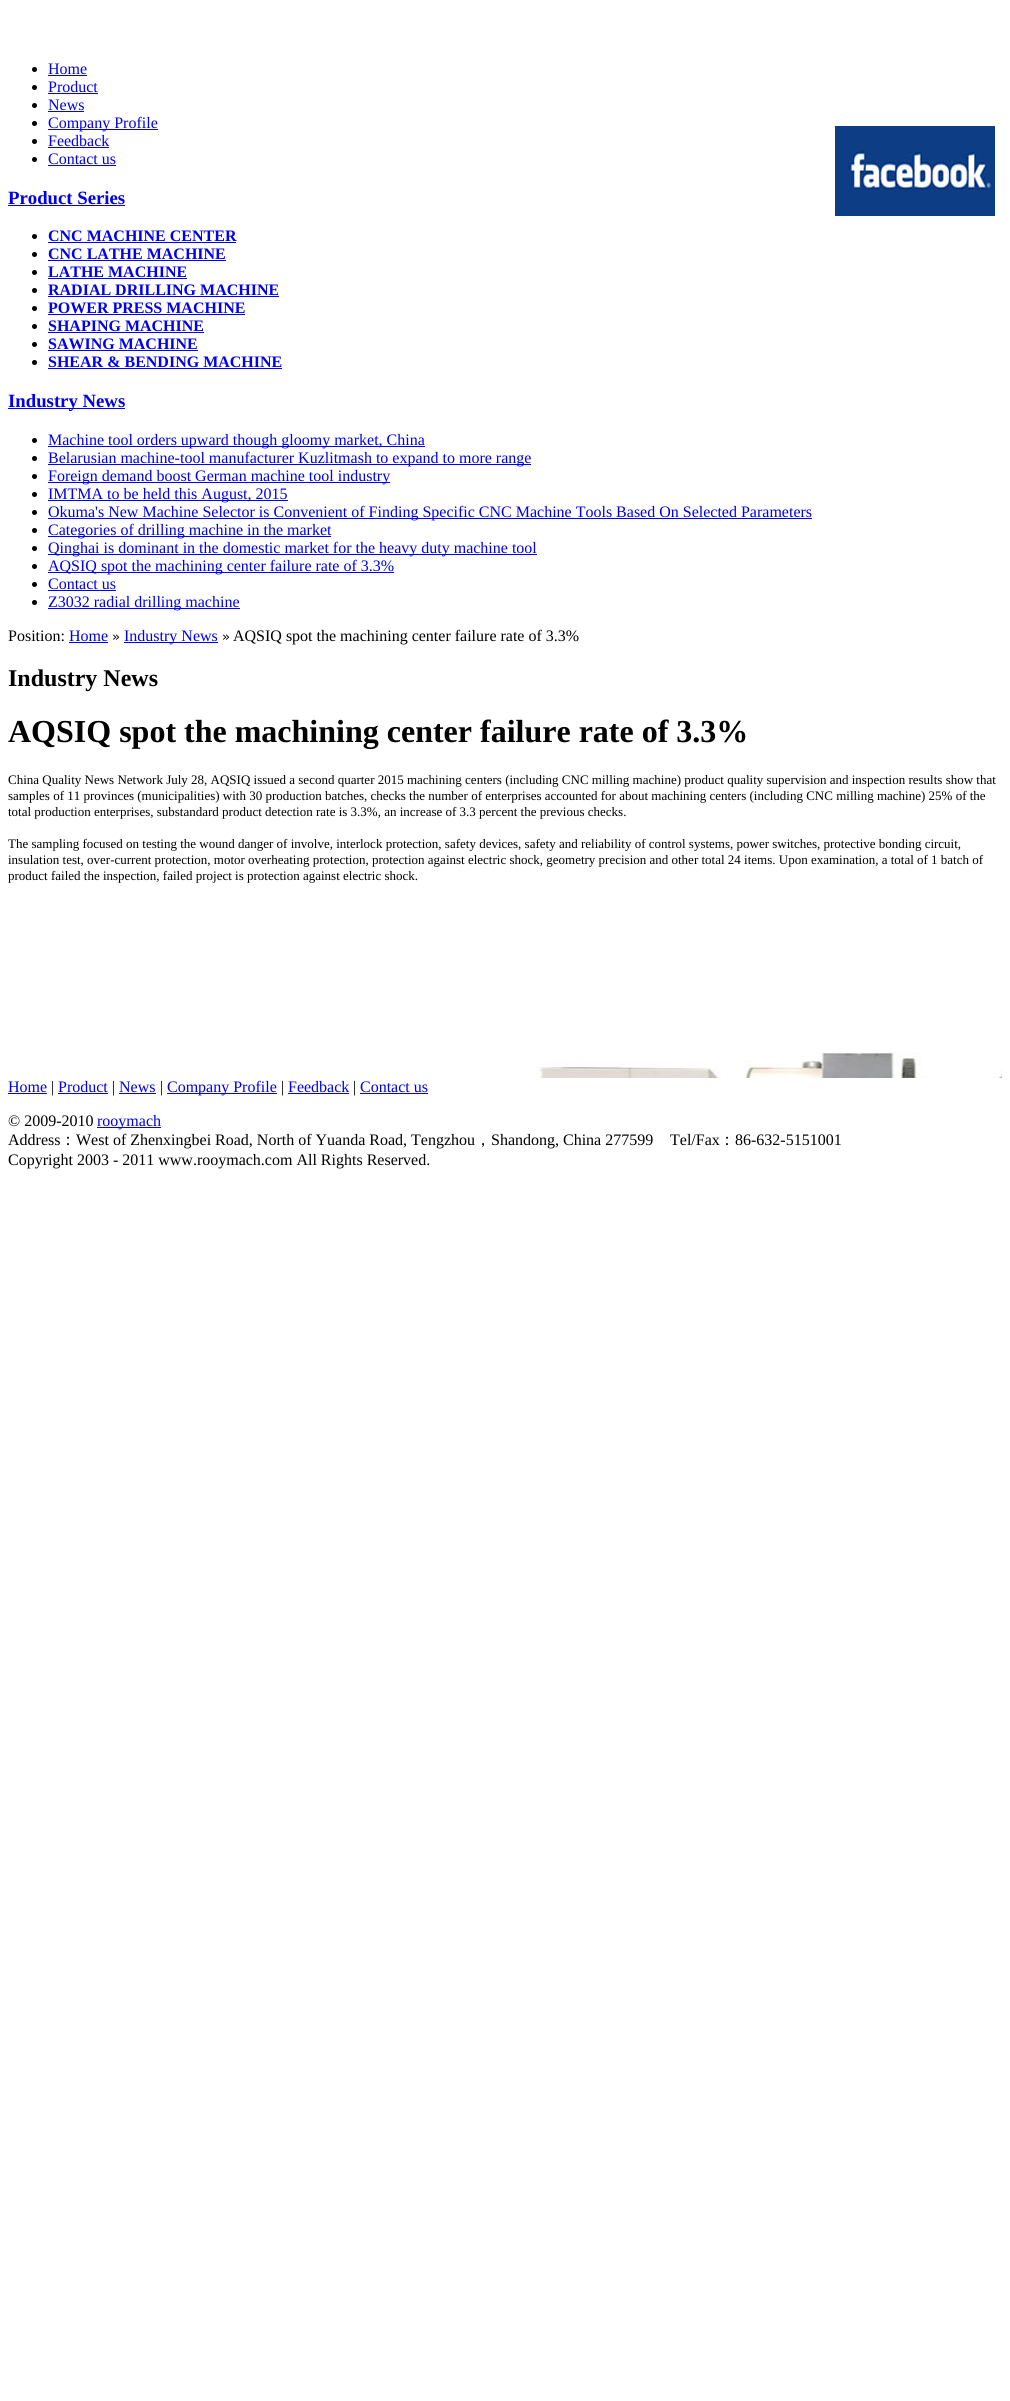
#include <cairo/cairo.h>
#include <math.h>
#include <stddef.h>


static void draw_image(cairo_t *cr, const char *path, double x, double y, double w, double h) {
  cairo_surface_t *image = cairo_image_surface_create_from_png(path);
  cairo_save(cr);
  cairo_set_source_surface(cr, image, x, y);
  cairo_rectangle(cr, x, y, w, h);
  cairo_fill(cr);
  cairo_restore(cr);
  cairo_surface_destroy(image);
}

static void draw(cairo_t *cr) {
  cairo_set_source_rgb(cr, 1, 1, 1);
  cairo_paint(cr);
  cairo_set_source_rgb(cr, 0, 0, 0);
  cairo_arc(cr, 34.5, 69.5, 2.5, 0, 2 * M_PI);
  cairo_fill(cr);
  cairo_set_source_rgb(cr, 0, 0, 238 / 255.0);
  cairo_rectangle(cr, 48, 75, 39, 1);
  cairo_fill(cr);
  cairo_set_source_rgb(cr, 0, 0, 0);
  cairo_arc(cr, 34.5, 87.5, 2.5, 0, 2 * M_PI);
  cairo_fill(cr);
  cairo_set_source_rgb(cr, 0, 0, 238 / 255.0);
  cairo_rectangle(cr, 48, 93, 50, 1);
  cairo_fill(cr);
  cairo_set_source_rgb(cr, 0, 0, 0);
  cairo_arc(cr, 34.5, 105.5, 2.5, 0, 2 * M_PI);
  cairo_fill(cr);
  cairo_set_source_rgb(cr, 0, 0, 238 / 255.0);
  cairo_rectangle(cr, 48, 111, 36, 1);
  cairo_fill(cr);
  cairo_set_source_rgb(cr, 0, 0, 0);
  cairo_arc(cr, 34.5, 123.5, 2.5, 0, 2 * M_PI);
  cairo_fill(cr);
  cairo_set_source_rgb(cr, 0, 0, 238 / 255.0);
  cairo_rectangle(cr, 48, 129, 110, 1);
  cairo_fill(cr);
  cairo_set_source_rgb(cr, 0, 0, 0);
  cairo_arc(cr, 34.5, 141.5, 2.5, 0, 2 * M_PI);
  cairo_fill(cr);
  cairo_set_source_rgb(cr, 0, 0, 238 / 255.0);
  cairo_rectangle(cr, 48, 147, 61, 1);
  cairo_fill(cr);
  cairo_set_source_rgb(cr, 0, 0, 0);
  cairo_arc(cr, 34.5, 159.5, 2.5, 0, 2 * M_PI);
  cairo_fill(cr);
  cairo_set_source_rgb(cr, 0, 0, 238 / 255.0);
  cairo_rectangle(cr, 48, 165, 68, 1);
  cairo_fill(cr);
  draw_image(cr, "images/1.png", 835, 126, 160, 90);
  cairo_rectangle(cr, 8, 205, 117, 1);
  cairo_fill(cr);
  cairo_set_source_rgb(cr, 0, 0, 0);
  cairo_arc(cr, 34.5, 236.5, 2.5, 0, 2 * M_PI);
  cairo_fill(cr);
  cairo_set_source_rgb(cr, 0, 0, 238 / 255.0);
  cairo_rectangle(cr, 48, 242, 188, 1);
  cairo_fill(cr);
  cairo_set_source_rgb(cr, 0, 0, 0);
  cairo_arc(cr, 34.5, 254.5, 2.5, 0, 2 * M_PI);
  cairo_fill(cr);
  cairo_set_source_rgb(cr, 0, 0, 238 / 255.0);
  cairo_rectangle(cr, 48, 260, 178, 1);
  cairo_fill(cr);
  cairo_set_source_rgb(cr, 0, 0, 0);
  cairo_arc(cr, 34.5, 272.5, 2.5, 0, 2 * M_PI);
  cairo_fill(cr);
  cairo_set_source_rgb(cr, 0, 0, 238 / 255.0);
  cairo_rectangle(cr, 48, 278, 139, 1);
  cairo_fill(cr);
  cairo_set_source_rgb(cr, 0, 0, 0);
  cairo_arc(cr, 34.5, 290.5, 2.5, 0, 2 * M_PI);
  cairo_fill(cr);
  cairo_set_source_rgb(cr, 0, 0, 238 / 255.0);
  cairo_rectangle(cr, 48, 296, 231, 1);
  cairo_fill(cr);
  cairo_set_source_rgb(cr, 0, 0, 0);
  cairo_arc(cr, 34.5, 308.5, 2.5, 0, 2 * M_PI);
  cairo_fill(cr);
  cairo_set_source_rgb(cr, 0, 0, 238 / 255.0);
  cairo_rectangle(cr, 48, 314, 197, 1);
  cairo_fill(cr);
  cairo_set_source_rgb(cr, 0, 0, 0);
  cairo_arc(cr, 34.5, 326.5, 2.5, 0, 2 * M_PI);
  cairo_fill(cr);
  cairo_set_source_rgb(cr, 0, 0, 238 / 255.0);
  cairo_rectangle(cr, 48, 332, 156, 1);
  cairo_fill(cr);
  cairo_set_source_rgb(cr, 0, 0, 0);
  cairo_arc(cr, 34.5, 344.5, 2.5, 0, 2 * M_PI);
  cairo_fill(cr);
  cairo_set_source_rgb(cr, 0, 0, 238 / 255.0);
  cairo_rectangle(cr, 48, 350, 150, 1);
  cairo_fill(cr);
  cairo_set_source_rgb(cr, 0, 0, 0);
  cairo_arc(cr, 34.5, 362.5, 2.5, 0, 2 * M_PI);
  cairo_fill(cr);
  cairo_set_source_rgb(cr, 0, 0, 238 / 255.0);
  cairo_rectangle(cr, 48, 368, 234, 1);
  cairo_fill(cr);
  cairo_rectangle(cr, 8, 408, 117, 1);
  cairo_fill(cr);
  cairo_set_source_rgb(cr, 0, 0, 0);
  cairo_arc(cr, 34.5, 440.5, 2.5, 0, 2 * M_PI);
  cairo_fill(cr);
  cairo_set_source_rgb(cr, 0, 0, 238 / 255.0);
  cairo_rectangle(cr, 48, 446, 377, 1);
  cairo_fill(cr);
  cairo_set_source_rgb(cr, 0, 0, 0);
  cairo_arc(cr, 34.5, 458.5, 2.5, 0, 2 * M_PI);
  cairo_fill(cr);
  cairo_set_source_rgb(cr, 0, 0, 238 / 255.0);
  cairo_rectangle(cr, 48, 464, 483, 1);
  cairo_fill(cr);
  cairo_set_source_rgb(cr, 0, 0, 0);
  cairo_arc(cr, 34.5, 476.5, 2.5, 0, 2 * M_PI);
  cairo_fill(cr);
  cairo_set_source_rgb(cr, 0, 0, 238 / 255.0);
  cairo_rectangle(cr, 48, 482, 342, 1);
  cairo_fill(cr);
  cairo_set_source_rgb(cr, 0, 0, 0);
  cairo_arc(cr, 34.5, 494.5, 2.5, 0, 2 * M_PI);
  cairo_fill(cr);
  cairo_set_source_rgb(cr, 0, 0, 238 / 255.0);
  cairo_rectangle(cr, 48, 500, 240, 1);
  cairo_fill(cr);
  cairo_set_source_rgb(cr, 0, 0, 0);
  cairo_arc(cr, 34.5, 512.5, 2.5, 0, 2 * M_PI);
  cairo_fill(cr);
  cairo_set_source_rgb(cr, 0, 0, 238 / 255.0);
  cairo_rectangle(cr, 48, 518, 764, 1);
  cairo_fill(cr);
  cairo_set_source_rgb(cr, 0, 0, 0);
  cairo_arc(cr, 34.5, 530.5, 2.5, 0, 2 * M_PI);
  cairo_fill(cr);
  cairo_set_source_rgb(cr, 0, 0, 238 / 255.0);
  cairo_rectangle(cr, 48, 536, 283, 1);
  cairo_fill(cr);
  cairo_set_source_rgb(cr, 0, 0, 0);
  cairo_arc(cr, 34.5, 548.5, 2.5, 0, 2 * M_PI);
  cairo_fill(cr);
  cairo_set_source_rgb(cr, 0, 0, 238 / 255.0);
  cairo_rectangle(cr, 48, 554, 489, 1);
  cairo_fill(cr);
  cairo_set_source_rgb(cr, 0, 0, 0);
  cairo_arc(cr, 34.5, 566.5, 2.5, 0, 2 * M_PI);
  cairo_fill(cr);
  cairo_set_source_rgb(cr, 0, 0, 238 / 255.0);
  cairo_rectangle(cr, 48, 572, 346, 1);
  cairo_fill(cr);
  cairo_set_source_rgb(cr, 0, 0, 0);
  cairo_arc(cr, 34.5, 584.5, 2.5, 0, 2 * M_PI);
  cairo_fill(cr);
  cairo_set_source_rgb(cr, 0, 0, 238 / 255.0);
  cairo_rectangle(cr, 48, 590, 68, 1);
  cairo_fill(cr);
  cairo_set_source_rgb(cr, 0, 0, 0);
  cairo_arc(cr, 34.5, 602.5, 2.5, 0, 2 * M_PI);
  cairo_fill(cr);
  cairo_set_source_rgb(cr, 0, 0, 238 / 255.0);
  cairo_rectangle(cr, 48, 608, 192, 1);
  cairo_fill(cr);
  cairo_rectangle(cr, 69, 642, 39, 1);
  cairo_fill(cr);
  cairo_rectangle(cr, 124, 642, 94, 1);
  cairo_fill(cr);
  draw_image(cr, "images/2.png", 537, 1052, 465, 26);
  cairo_rectangle(cr, 8, 1093, 39, 1);
  cairo_fill(cr);
  cairo_rectangle(cr, 58, 1093, 50, 1);
  cairo_fill(cr);
  cairo_rectangle(cr, 119, 1093, 37, 1);
  cairo_fill(cr);
  cairo_rectangle(cr, 167, 1093, 110, 1);
  cairo_fill(cr);
  cairo_rectangle(cr, 288, 1093, 61, 1);
  cairo_fill(cr);
  cairo_rectangle(cr, 360, 1093, 68, 1);
  cairo_fill(cr);
  cairo_rectangle(cr, 97, 1127, 64, 1);
  cairo_fill(cr);
  cairo_select_font_face(cr, "Liberation Serif", CAIRO_FONT_SLANT_NORMAL, CAIRO_FONT_WEIGHT_NORMAL);
  cairo_set_font_size(cr, 16);
  cairo_move_to(cr, 48, 74);
  cairo_show_text(cr, "Home");
  cairo_move_to(cr, 48, 92);
  cairo_show_text(cr, "Product");
  cairo_move_to(cr, 48, 110);
  cairo_show_text(cr, "News");
  cairo_move_to(cr, 48, 128);
  cairo_show_text(cr, "Company Profile");
  cairo_move_to(cr, 48, 146);
  cairo_show_text(cr, "Feedback");
  cairo_move_to(cr, 48, 164);
  cairo_show_text(cr, "Contact us");
  cairo_select_font_face(cr, "Liberation Serif", CAIRO_FONT_SLANT_NORMAL, CAIRO_FONT_WEIGHT_BOLD);
  cairo_set_font_size(cr, 18.75);
  cairo_move_to(cr, 8, 204);
  cairo_show_text(cr, "Product Series");
  cairo_set_font_size(cr, 16);
  cairo_move_to(cr, 48, 241);
  cairo_show_text(cr, "CNC MACHINE CENTER");
  cairo_move_to(cr, 48, 259);
  cairo_show_text(cr, "CNC LATHE MACHINE");
  cairo_move_to(cr, 48, 277);
  cairo_show_text(cr, "LATHE MACHINE");
  cairo_move_to(cr, 48, 295);
  cairo_show_text(cr, "RADIAL DRILLING MACHINE");
  cairo_move_to(cr, 48, 313);
  cairo_show_text(cr, "POWER PRESS MACHINE");
  cairo_move_to(cr, 48, 331);
  cairo_show_text(cr, "SHAPING MACHINE");
  cairo_move_to(cr, 48, 349);
  cairo_show_text(cr, "SAWING MACHINE");
  cairo_move_to(cr, 48, 367);
  cairo_show_text(cr, "SHEAR & BENDING MACHINE");
  cairo_set_font_size(cr, 18.75);
  cairo_move_to(cr, 8, 407);
  cairo_show_text(cr, "Industry News");
  cairo_select_font_face(cr, "Liberation Serif", CAIRO_FONT_SLANT_NORMAL, CAIRO_FONT_WEIGHT_NORMAL);
  cairo_set_font_size(cr, 16);
  cairo_move_to(cr, 48, 445);
  cairo_show_text(cr, "Machine tool orders upward though gloomy market, China");
  cairo_move_to(cr, 48, 463);
  cairo_show_text(cr, "Belarusian machine-tool manufacturer Kuzlitmash to expand to more range");
  cairo_move_to(cr, 48, 481);
  cairo_show_text(cr, "Foreign demand boost German machine tool industry");
  cairo_move_to(cr, 48, 499);
  cairo_show_text(cr, "IMTMA to be held this August, 2015");
  cairo_move_to(cr, 48, 517);
  cairo_show_text(cr, "Okuma's New Machine Selector is Convenient of Finding Specific CNC Machine Tools Based On Selected Parameters");
  cairo_move_to(cr, 48, 535);
  cairo_show_text(cr, "Categories of drilling machine in the market");
  cairo_move_to(cr, 48, 553);
  cairo_show_text(cr, "Qinghai is dominant in the domestic market for the heavy duty machine tool");
  cairo_move_to(cr, 48, 571);
  cairo_show_text(cr, "AQSIQ spot the machining center failure rate of 3.3%");
  cairo_move_to(cr, 48, 589);
  cairo_show_text(cr, "Contact us");
  cairo_move_to(cr, 48, 607);
  cairo_show_text(cr, "Z3032 radial drilling machine");
  cairo_set_source_rgb(cr, 0, 0, 0);
  cairo_move_to(cr, 8, 641);
  cairo_show_text(cr, "Position:");
  cairo_set_source_rgb(cr, 0, 0, 238 / 255.0);
  cairo_move_to(cr, 69, 641);
  cairo_show_text(cr, "Home");
  cairo_select_font_face(cr, "DejaVu Sans Mono", CAIRO_FONT_SLANT_NORMAL, CAIRO_FONT_WEIGHT_NORMAL);
  cairo_set_font_size(cr, 13);
  cairo_set_source_rgb(cr, 0, 0, 0);
  cairo_move_to(cr, 112, 641);
  cairo_show_text(cr, "»");
  cairo_select_font_face(cr, "Liberation Serif", CAIRO_FONT_SLANT_NORMAL, CAIRO_FONT_WEIGHT_NORMAL);
  cairo_set_font_size(cr, 16);
  cairo_set_source_rgb(cr, 0, 0, 238 / 255.0);
  cairo_move_to(cr, 124, 641);
  cairo_show_text(cr, "Industry News");
  cairo_select_font_face(cr, "DejaVu Sans Mono", CAIRO_FONT_SLANT_NORMAL, CAIRO_FONT_WEIGHT_NORMAL);
  cairo_set_font_size(cr, 13);
  cairo_set_source_rgb(cr, 0, 0, 0);
  cairo_move_to(cr, 222, 641);
  cairo_show_text(cr, "»");
  cairo_select_font_face(cr, "Liberation Serif", CAIRO_FONT_SLANT_NORMAL, CAIRO_FONT_WEIGHT_NORMAL);
  cairo_set_font_size(cr, 16);
  cairo_move_to(cr, 233, 641);
  cairo_show_text(cr, "AQSIQ spot the machining center failure rate of 3.3%");
  cairo_select_font_face(cr, "Liberation Serif", CAIRO_FONT_SLANT_NORMAL, CAIRO_FONT_WEIGHT_BOLD);
  cairo_set_font_size(cr, 24);
  cairo_move_to(cr, 8, 686);
  cairo_show_text(cr, "Industry News");
  cairo_set_font_size(cr, 32);
  cairo_move_to(cr, 8, 742);
  cairo_show_text(cr, "AQSIQ spot the machining center failure rate of 3.3%");
  cairo_select_font_face(cr, "Liberation Serif", CAIRO_FONT_SLANT_NORMAL, CAIRO_FONT_WEIGHT_NORMAL);
  cairo_set_font_size(cr, 13);
  cairo_move_to(cr, 8, 784);
  cairo_show_text(cr, "China Quality News Network July 28, AQSIQ issued a second quarter 2015 machining centers (including CNC milling machine) product quality supervision and inspection results show that");
  cairo_move_to(cr, 8, 800);
  cairo_show_text(cr, "samples of 11 provinces (municipalities) with 30 production batches, checks the number of enterprises accounted for about machining centers (including CNC milling machine) 25% of the");
  cairo_move_to(cr, 8, 816);
  cairo_show_text(cr, "total production enterprises, substandard product detection rate is 3.3%, an increase of 3.3 percent the previous checks.");
  cairo_move_to(cr, 8, 848);
  cairo_show_text(cr, "The sampling focused on testing the wound danger of involve, interlock protection, safety devices, safety and reliability of control systems, power switches, protective bonding circuit,");
  cairo_move_to(cr, 8, 864);
  cairo_show_text(cr, "insulation test, over-current protection, motor overheating protection, protection against electric shock, geometry precision and other total 24 items. Upon examination, a total of 1 batch of");
  cairo_move_to(cr, 8, 880);
  cairo_show_text(cr, "product failed the inspection, failed project is protection against electric shock.");
  cairo_set_font_size(cr, 16);
  cairo_set_source_rgb(cr, 0, 0, 238 / 255.0);
  cairo_move_to(cr, 8, 1092);
  cairo_show_text(cr, "Home");
  cairo_set_source_rgb(cr, 0, 0, 0);
  cairo_move_to(cr, 51, 1092);
  cairo_show_text(cr, "|");
  cairo_set_source_rgb(cr, 0, 0, 238 / 255.0);
  cairo_move_to(cr, 58, 1092);
  cairo_show_text(cr, "Product");
  cairo_set_source_rgb(cr, 0, 0, 0);
  cairo_move_to(cr, 112, 1092);
  cairo_show_text(cr, "|");
  cairo_set_source_rgb(cr, 0, 0, 238 / 255.0);
  cairo_move_to(cr, 119, 1092);
  cairo_show_text(cr, "News");
  cairo_set_source_rgb(cr, 0, 0, 0);
  cairo_move_to(cr, 160, 1092);
  cairo_show_text(cr, "|");
  cairo_set_source_rgb(cr, 0, 0, 238 / 255.0);
  cairo_move_to(cr, 167, 1092);
  cairo_show_text(cr, "Company Profile");
  cairo_set_source_rgb(cr, 0, 0, 0);
  cairo_move_to(cr, 281, 1092);
  cairo_show_text(cr, "|");
  cairo_set_source_rgb(cr, 0, 0, 238 / 255.0);
  cairo_move_to(cr, 288, 1092);
  cairo_show_text(cr, "Feedback");
  cairo_set_source_rgb(cr, 0, 0, 0);
  cairo_move_to(cr, 353, 1092);
  cairo_show_text(cr, "|");
  cairo_set_source_rgb(cr, 0, 0, 238 / 255.0);
  cairo_move_to(cr, 360, 1092);
  cairo_show_text(cr, "Contact us");
  cairo_set_source_rgb(cr, 0, 0, 0);
  cairo_move_to(cr, 8, 1126);
  cairo_show_text(cr, "© 2009-2010");
  cairo_set_source_rgb(cr, 0, 0, 238 / 255.0);
  cairo_move_to(cr, 97, 1126);
  cairo_show_text(cr, "rooymach");
  cairo_set_source_rgb(cr, 0, 0, 0);
  cairo_move_to(cr, 8, 1145);
  cairo_show_text(cr, "Address");
  cairo_select_font_face(cr, "WenQuanYi Zen Hei Medium", CAIRO_FONT_SLANT_NORMAL, CAIRO_FONT_WEIGHT_NORMAL);
  cairo_move_to(cr, 60, 1145);
  cairo_show_text(cr, "：");
  cairo_select_font_face(cr, "Liberation Serif", CAIRO_FONT_SLANT_NORMAL, CAIRO_FONT_WEIGHT_NORMAL);
  cairo_move_to(cr, 76, 1145);
  cairo_show_text(cr, "West of Zhenxingbei Road, North of Yuanda Road, Tengzhou");
  cairo_move_to(cr, 491, 1145);
  cairo_show_text(cr, "Shandong, China 277599");
  cairo_move_to(cr, 670, 1145);
  cairo_show_text(cr, "Tel/Fax");
  cairo_select_font_face(cr, "WenQuanYi Zen Hei Medium", CAIRO_FONT_SLANT_NORMAL, CAIRO_FONT_WEIGHT_NORMAL);
  cairo_move_to(cr, 719, 1145);
  cairo_show_text(cr, "：");
  cairo_select_font_face(cr, "Liberation Serif", CAIRO_FONT_SLANT_NORMAL, CAIRO_FONT_WEIGHT_NORMAL);
  cairo_move_to(cr, 735, 1145);
  cairo_show_text(cr, "86-632-5151001");
  cairo_select_font_face(cr, "WenQuanYi Zen Hei Medium", CAIRO_FONT_SLANT_NORMAL, CAIRO_FONT_WEIGHT_NORMAL);
  cairo_move_to(cr, 475, 1145);
  cairo_show_text(cr, "，");
  cairo_select_font_face(cr, "Liberation Serif", CAIRO_FONT_SLANT_NORMAL, CAIRO_FONT_WEIGHT_NORMAL);
  cairo_move_to(cr, 8, 1165);
  cairo_show_text(cr, "Copyright 2003 - 2011 www.rooymach.com All Rights Reserved.");
}

int main(void) {
  cairo_surface_t *surface = cairo_image_surface_create(CAIRO_FORMAT_RGB24, 1010, 2401);
  cairo_t *cr = cairo_create(surface);
  cairo_font_options_t *options = cairo_font_options_create();
  cairo_font_options_set_hint_metrics(options, CAIRO_HINT_METRICS_OFF);
  cairo_font_options_set_hint_style(options, CAIRO_HINT_STYLE_NONE);
  cairo_set_font_options(cr, options);
  cairo_set_miter_limit(cr, 4);
  draw(cr);
  cairo_surface_write_to_png(surface, "out.png");
  cairo_font_options_destroy(options);
  cairo_destroy(cr);
  cairo_surface_destroy(surface);
  return 0;
}
